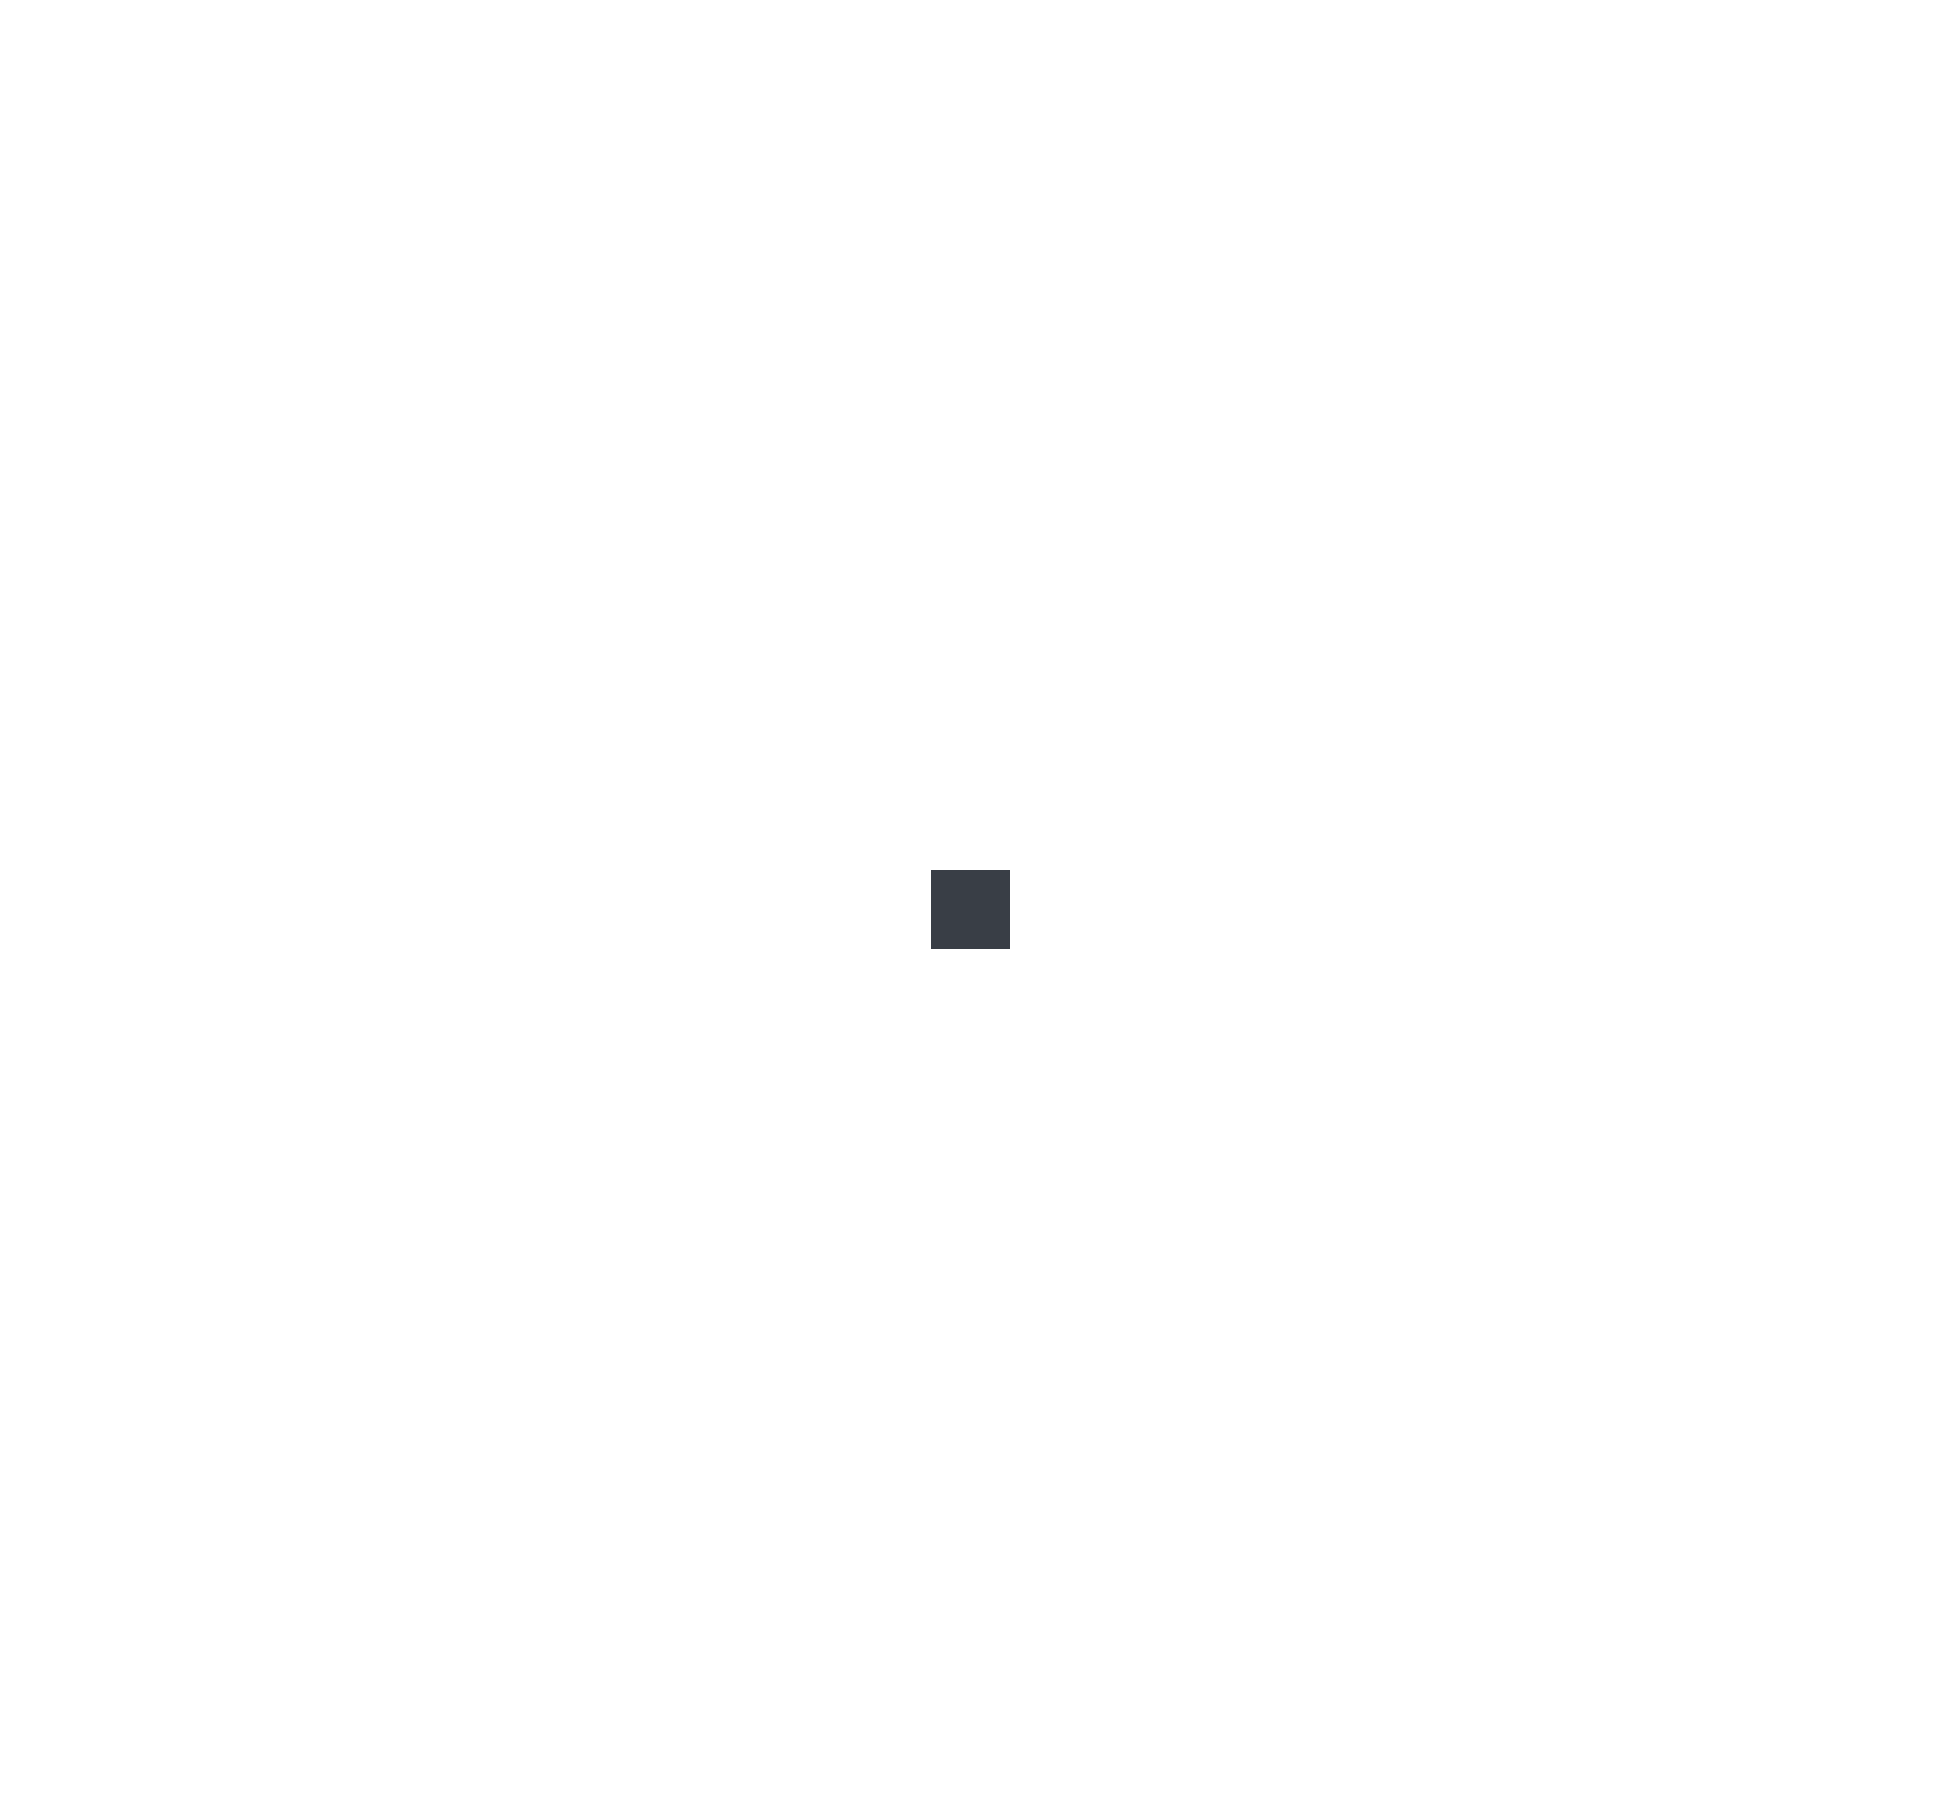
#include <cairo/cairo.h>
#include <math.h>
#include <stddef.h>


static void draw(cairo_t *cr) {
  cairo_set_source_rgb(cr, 1, 1, 1);
  cairo_paint(cr);
  cairo_set_source_rgb(cr, 57 / 255.0, 62 / 255.0, 70 / 255.0);
  cairo_rectangle(cr, 931, 870, 79, 79);
  cairo_fill(cr);
}

int main(void) {
  cairo_surface_t *surface = cairo_image_surface_create(CAIRO_FORMAT_RGB24, 1938, 1815);
  cairo_t *cr = cairo_create(surface);
  cairo_font_options_t *options = cairo_font_options_create();
  cairo_font_options_set_hint_metrics(options, CAIRO_HINT_METRICS_OFF);
  cairo_font_options_set_hint_style(options, CAIRO_HINT_STYLE_NONE);
  cairo_set_font_options(cr, options);
  cairo_set_miter_limit(cr, 4);
  draw(cr);
  cairo_surface_write_to_png(surface, "out.png");
  cairo_font_options_destroy(options);
  cairo_destroy(cr);
  cairo_surface_destroy(surface);
  return 0;
}
